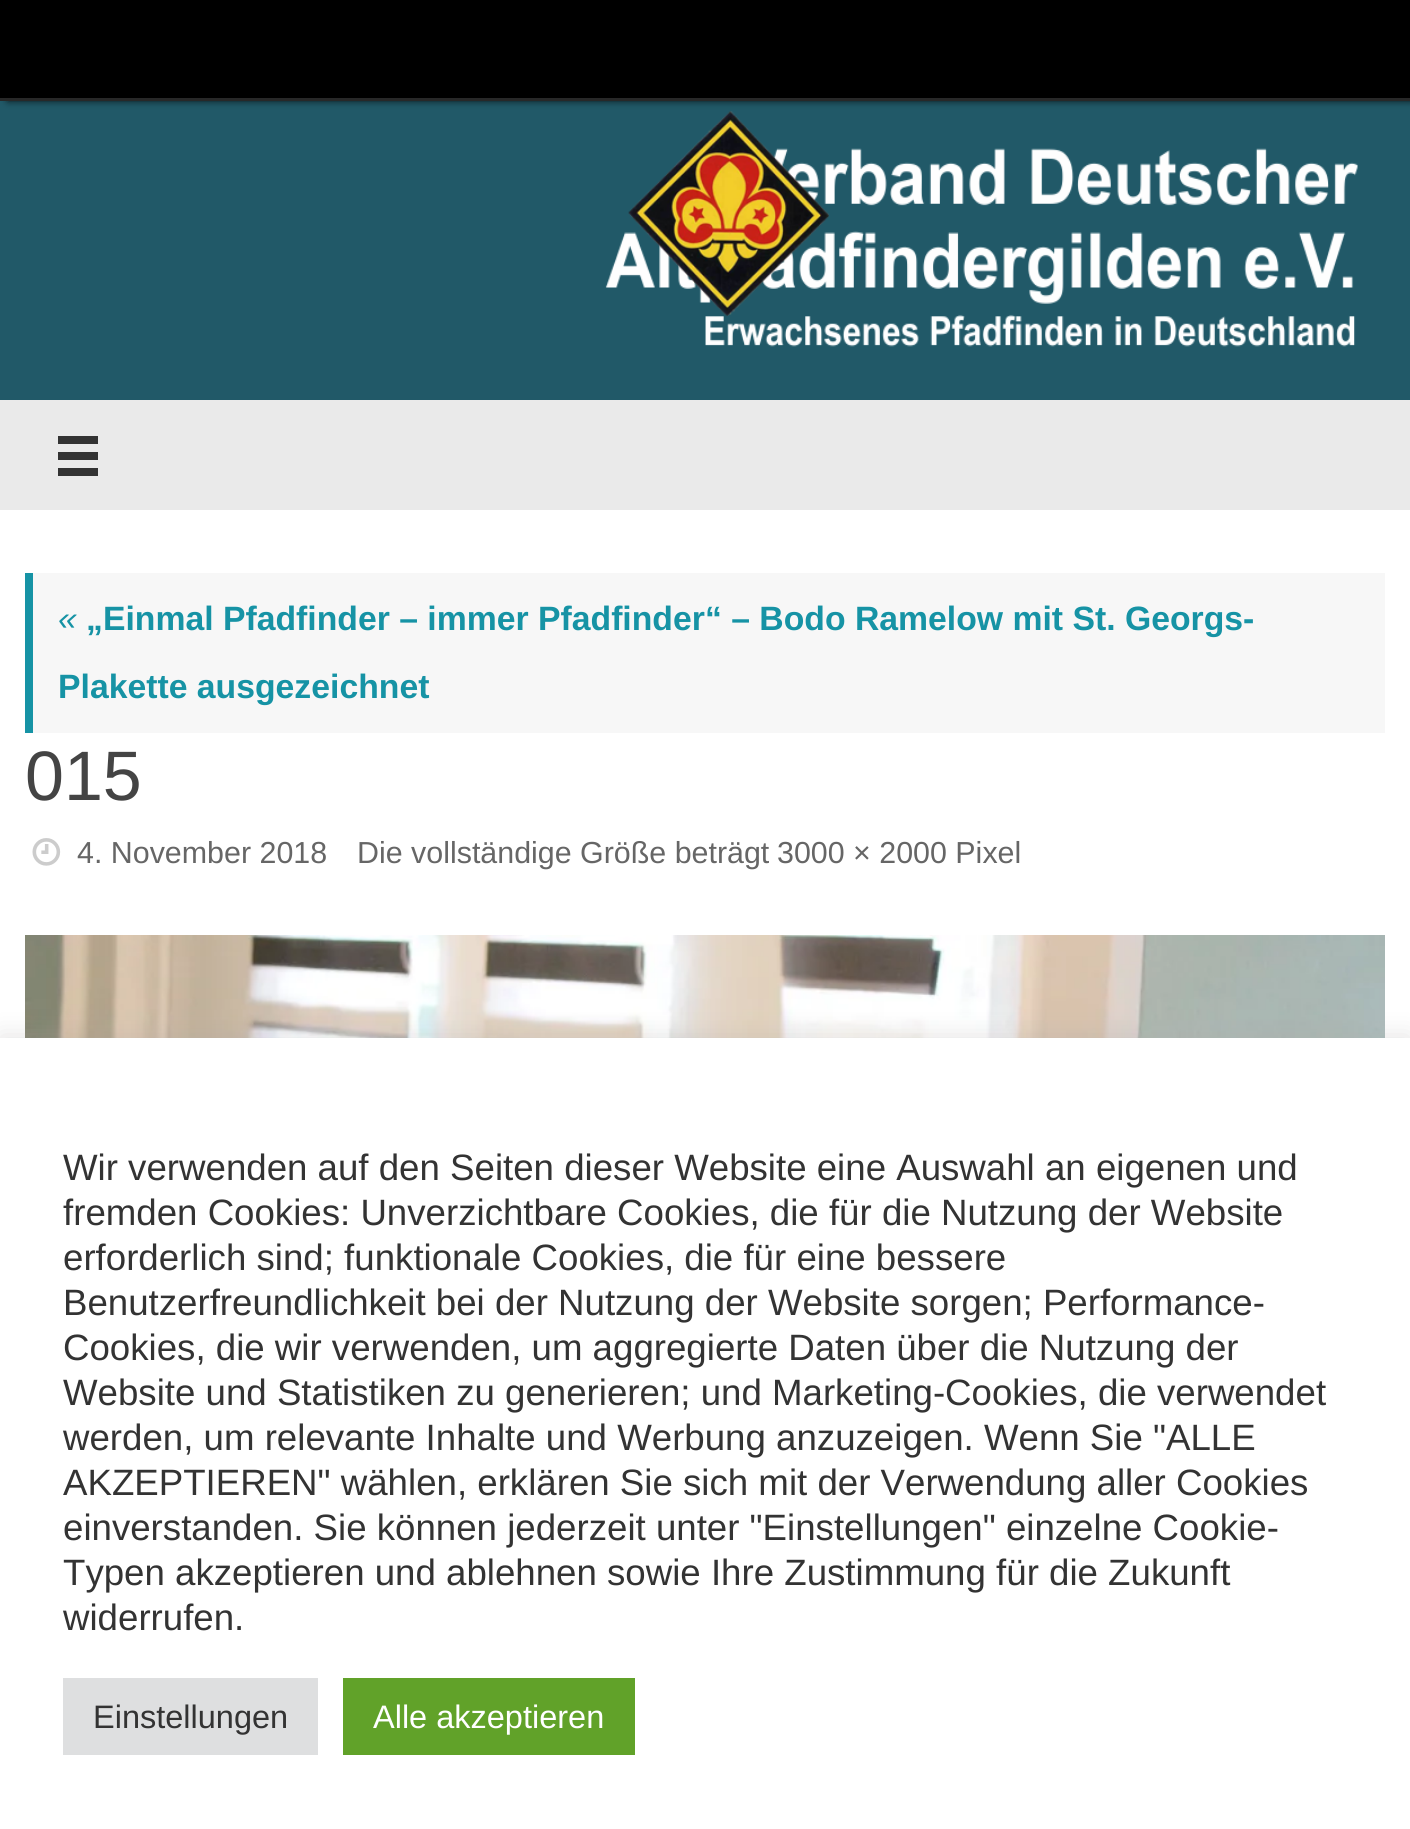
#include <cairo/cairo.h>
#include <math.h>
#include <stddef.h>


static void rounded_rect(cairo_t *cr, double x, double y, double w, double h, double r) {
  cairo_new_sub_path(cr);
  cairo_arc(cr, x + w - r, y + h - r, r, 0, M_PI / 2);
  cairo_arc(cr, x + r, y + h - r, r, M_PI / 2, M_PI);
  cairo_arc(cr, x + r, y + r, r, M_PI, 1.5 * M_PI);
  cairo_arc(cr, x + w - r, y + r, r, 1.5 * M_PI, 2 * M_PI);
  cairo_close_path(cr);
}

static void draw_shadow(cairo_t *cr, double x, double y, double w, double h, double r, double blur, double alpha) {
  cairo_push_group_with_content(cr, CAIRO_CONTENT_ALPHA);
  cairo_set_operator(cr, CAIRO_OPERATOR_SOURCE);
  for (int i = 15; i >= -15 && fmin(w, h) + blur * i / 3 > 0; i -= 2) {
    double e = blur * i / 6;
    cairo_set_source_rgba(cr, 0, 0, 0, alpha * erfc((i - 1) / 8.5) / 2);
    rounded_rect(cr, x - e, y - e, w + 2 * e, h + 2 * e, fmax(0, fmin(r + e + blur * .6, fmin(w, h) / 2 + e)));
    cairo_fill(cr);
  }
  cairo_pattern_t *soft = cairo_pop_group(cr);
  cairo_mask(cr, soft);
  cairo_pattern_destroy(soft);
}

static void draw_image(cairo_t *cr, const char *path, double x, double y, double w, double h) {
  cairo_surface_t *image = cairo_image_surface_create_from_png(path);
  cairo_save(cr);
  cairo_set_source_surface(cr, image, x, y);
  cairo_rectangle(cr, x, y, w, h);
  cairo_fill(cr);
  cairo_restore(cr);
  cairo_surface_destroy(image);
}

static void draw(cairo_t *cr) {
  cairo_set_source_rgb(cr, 33 / 255.0, 89 / 255.0, 104 / 255.0);
  cairo_paint(cr);
  cairo_set_source_rgb(cr, 0, 0, 0);
  draw_shadow(cr, 8, 0, 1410, 100, 0, 4, 1);
  cairo_set_source_rgb(cr, 0, 0, 0);
  cairo_rectangle(cr, 0, 0, 1410, 98);
  cairo_fill(cr);
  cairo_set_source_rgb(cr, 40 / 255.0, 40 / 255.0, 40 / 255.0);
  cairo_rectangle(cr, 0, 98, 1410, 3);
  cairo_fill(cr);
  draw_image(cr, "images/2.png", 605, 148, 753, 199);
  draw_image(cr, "images/1.png", 628, 111, 201, 205);
  cairo_set_source_rgb(cr, 234 / 255.0, 234 / 255.0, 234 / 255.0);
  cairo_rectangle(cr, 0, 400, 1410, 110);
  cairo_fill(cr);
  cairo_set_source_rgb(cr, 51 / 255.0, 51 / 255.0, 51 / 255.0);
  cairo_new_path(cr);
  cairo_move_to(cr, 58, 436);
  cairo_line_to(cr, 58, 444);
  cairo_line_to(cr, 98, 444);
  cairo_line_to(cr, 98, 436);
  cairo_close_path(cr);
  cairo_move_to(cr, 58, 452);
  cairo_line_to(cr, 58, 460);
  cairo_line_to(cr, 98, 460);
  cairo_line_to(cr, 98, 452);
  cairo_close_path(cr);
  cairo_move_to(cr, 58, 468);
  cairo_line_to(cr, 58, 476);
  cairo_line_to(cr, 98, 476);
  cairo_line_to(cr, 98, 468);
  cairo_close_path(cr);
  cairo_fill(cr);
  cairo_set_source_rgb(cr, 1, 1, 1);
  cairo_rectangle(cr, 0, 510, 1410, 528);
  cairo_fill(cr);
  cairo_set_source_rgb(cr, 247 / 255.0, 247 / 255.0, 247 / 255.0);
  cairo_rectangle(cr, 33, 573, 1352, 160);
  cairo_fill(cr);
  cairo_set_source_rgb(cr, 22 / 255.0, 147 / 255.0, 165 / 255.0);
  cairo_rectangle(cr, 25, 573, 8, 160);
  cairo_fill(cr);
  draw_image(cr, "images/3.png", 32, 838, 29, 28);
  draw_image(cr, "images/4.png", 25, 935, 1360, 103);
  cairo_set_source_rgb(cr, 172 / 255.0, 171 / 255.0, 171 / 255.0);
  draw_shadow(cr, 0, 1035, 1410, 793, 0, 12.5, 0.3);
  cairo_set_source_rgb(cr, 1, 1, 1);
  cairo_rectangle(cr, 0, 1038, 1410, 791);
  cairo_fill(cr);
  cairo_set_source_rgb(cr, 222 / 255.0, 223 / 255.0, 224 / 255.0);
  cairo_rectangle(cr, 63, 1678, 255, 77);
  cairo_fill(cr);
  cairo_set_source_rgb(cr, 97 / 255.0, 162 / 255.0, 41 / 255.0);
  cairo_rectangle(cr, 343, 1678, 292, 77);
  cairo_fill(cr);
  cairo_select_font_face(cr, "Liberation Sans", CAIRO_FONT_SLANT_ITALIC, CAIRO_FONT_WEIGHT_NORMAL);
  cairo_set_font_size(cr, 33.75);
  cairo_set_source_rgb(cr, 22 / 255.0, 147 / 255.0, 165 / 255.0);
  cairo_move_to(cr, 58, 630);
  cairo_show_text(cr, "«");
  cairo_select_font_face(cr, "Liberation Sans", CAIRO_FONT_SLANT_NORMAL, CAIRO_FONT_WEIGHT_BOLD);
  cairo_move_to(cr, 86, 630);
  cairo_show_text(cr, "„Einmal Pfadfinder – immer Pfadfinder“ – Bodo Ramelow mit St. Georgs-");
  cairo_move_to(cr, 58, 698);
  cairo_show_text(cr, "Plakette ausgezeichnet");
  cairo_select_font_face(cr, "Liberation Sans", CAIRO_FONT_SLANT_NORMAL, CAIRO_FONT_WEIGHT_NORMAL);
  cairo_set_font_size(cr, 70);
  cairo_set_source_rgb(cr, 68 / 255.0, 68 / 255.0, 68 / 255.0);
  cairo_move_to(cr, 25, 800);
  cairo_show_text(cr, "015");
  cairo_set_font_size(cr, 30.4);
  cairo_set_source_rgb(cr, 102 / 255.0, 102 / 255.0, 102 / 255.0);
  cairo_move_to(cr, 77, 863);
  cairo_show_text(cr, "4. November 2018");
  cairo_move_to(cr, 357, 863);
  cairo_show_text(cr, "Die vollständige Größe beträgt");
  cairo_move_to(cr, 777, 863);
  cairo_show_text(cr, "3000 × 2000 Pixel");
  cairo_set_font_size(cr, 36.65);
  cairo_set_source_rgb(cr, 51 / 255.0, 51 / 255.0, 51 / 255.0);
  cairo_move_to(cr, 63, 1180);
  cairo_show_text(cr, "Wir verwenden auf den Seiten dieser Website eine Auswahl an eigenen und");
  cairo_move_to(cr, 63, 1225);
  cairo_show_text(cr, "fremden Cookies: Unverzichtbare Cookies, die für die Nutzung der Website");
  cairo_move_to(cr, 63, 1270);
  cairo_show_text(cr, "erforderlich sind; funktionale Cookies, die für eine bessere");
  cairo_move_to(cr, 63, 1315);
  cairo_show_text(cr, "Benutzerfreundlichkeit bei der Nutzung der Website sorgen; Performance-");
  cairo_move_to(cr, 63, 1360);
  cairo_show_text(cr, "Cookies, die wir verwenden, um aggregierte Daten über die Nutzung der");
  cairo_move_to(cr, 63, 1405);
  cairo_show_text(cr, "Website und Statistiken zu generieren; und Marketing-Cookies, die verwendet");
  cairo_move_to(cr, 63, 1450);
  cairo_show_text(cr, "werden, um relevante Inhalte und Werbung anzuzeigen. Wenn Sie \"ALLE");
  cairo_move_to(cr, 63, 1495);
  cairo_show_text(cr, "AKZEPTIEREN\" wählen, erklären Sie sich mit der Verwendung aller Cookies");
  cairo_move_to(cr, 63, 1540);
  cairo_show_text(cr, "einverstanden. Sie können jederzeit unter \"Einstellungen\" einzelne Cookie-");
  cairo_move_to(cr, 63, 1585);
  cairo_show_text(cr, "Typen akzeptieren und ablehnen sowie Ihre Zustimmung für die Zukunft");
  cairo_move_to(cr, 63, 1630);
  cairo_show_text(cr, "widerrufen.");
  cairo_set_font_size(cr, 32.5);
  cairo_move_to(cr, 93, 1728);
  cairo_show_text(cr, "Einstellungen");
  cairo_set_source_rgb(cr, 1, 1, 1);
  cairo_move_to(cr, 373, 1728);
  cairo_show_text(cr, "Alle akzeptieren");
}

int main(void) {
  cairo_surface_t *surface = cairo_image_surface_create(CAIRO_FORMAT_RGB24, 1410, 1829);
  cairo_t *cr = cairo_create(surface);
  cairo_font_options_t *options = cairo_font_options_create();
  cairo_font_options_set_hint_metrics(options, CAIRO_HINT_METRICS_OFF);
  cairo_font_options_set_hint_style(options, CAIRO_HINT_STYLE_NONE);
  cairo_set_font_options(cr, options);
  cairo_set_miter_limit(cr, 4);
  draw(cr);
  cairo_surface_write_to_png(surface, "out.png");
  cairo_font_options_destroy(options);
  cairo_destroy(cr);
  cairo_surface_destroy(surface);
  return 0;
}
